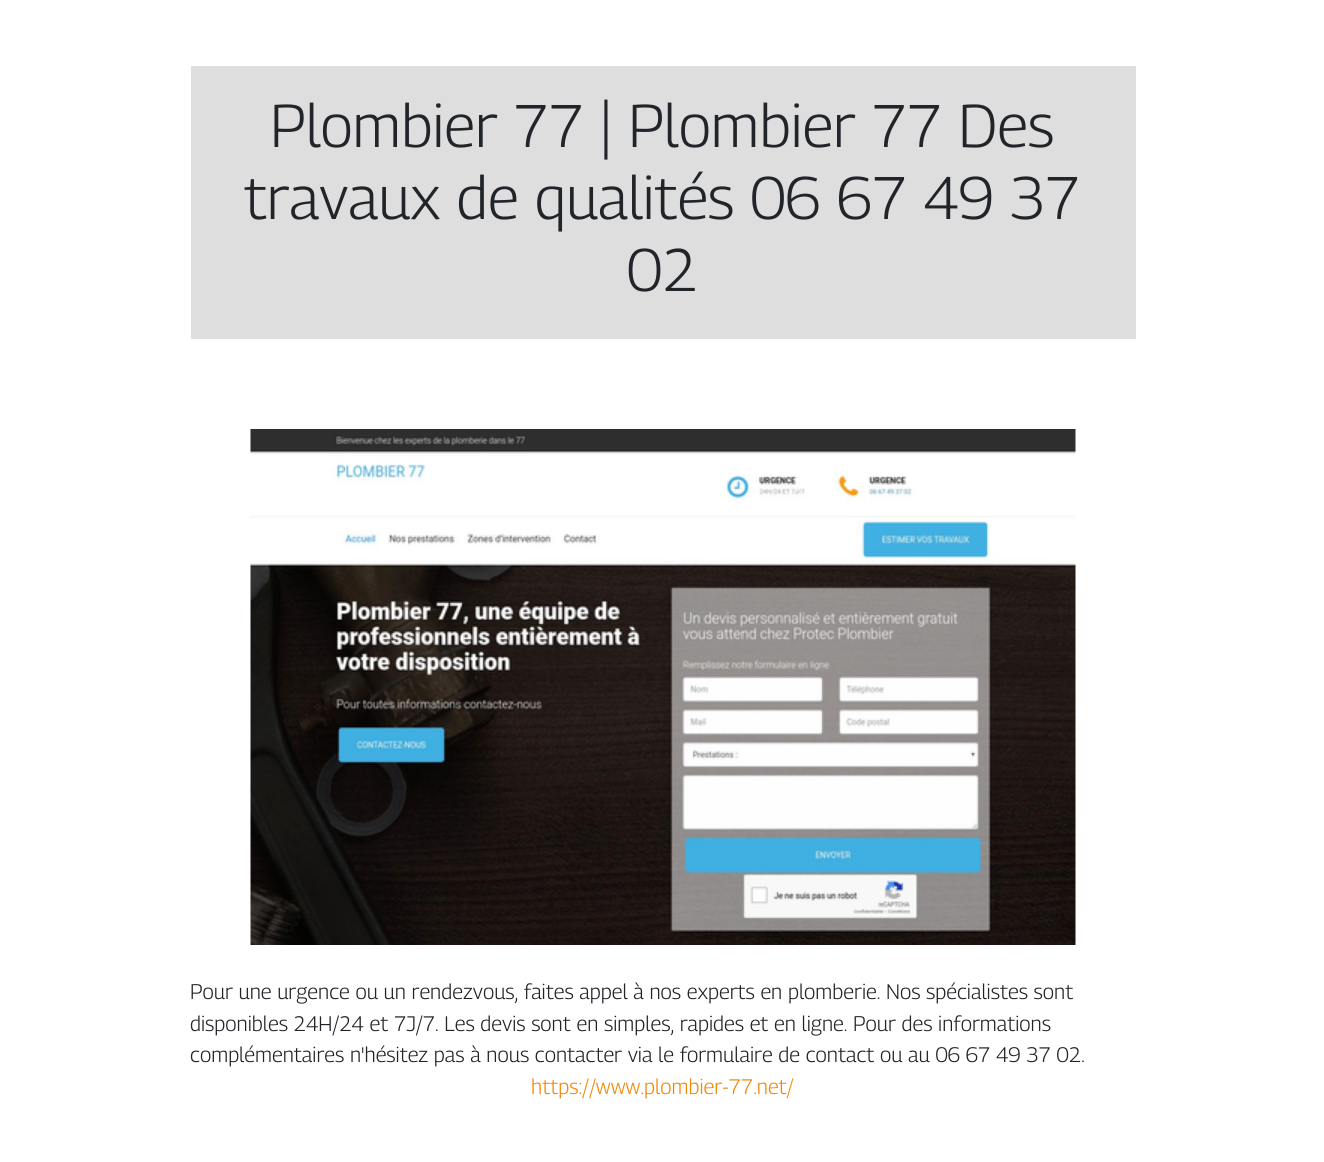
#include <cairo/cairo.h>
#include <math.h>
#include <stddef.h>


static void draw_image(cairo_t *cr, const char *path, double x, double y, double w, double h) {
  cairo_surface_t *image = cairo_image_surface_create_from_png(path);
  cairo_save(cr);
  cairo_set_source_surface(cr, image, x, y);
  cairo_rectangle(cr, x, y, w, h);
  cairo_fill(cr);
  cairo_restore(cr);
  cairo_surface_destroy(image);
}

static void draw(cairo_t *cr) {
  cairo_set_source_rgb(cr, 1, 1, 1);
  cairo_paint(cr);
  cairo_set_source_rgb(cr, 222 / 255.0, 222 / 255.0, 222 / 255.0);
  cairo_rectangle(cr, 191, 66, 945, 273);
  cairo_fill(cr);
  draw_image(cr, "images/1.png", 250, 429, 826, 516);
  cairo_select_font_face(cr, "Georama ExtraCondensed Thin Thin", CAIRO_FONT_SLANT_NORMAL, CAIRO_FONT_WEIGHT_NORMAL);
  cairo_set_font_size(cr, 60);
  cairo_set_source_rgb(cr, 33 / 255.0, 37 / 255.0, 41 / 255.0);
  cairo_move_to(cr, 270, 147);
  cairo_show_text(cr, "Plombier 77 | Plombier 77 Des");
  cairo_move_to(cr, 244, 219);
  cairo_show_text(cr, "travaux de qualités 06 67 49 37");
  cairo_move_to(cr, 627, 291);
  cairo_show_text(cr, "02");
  cairo_set_font_size(cr, 21);
  cairo_move_to(cr, 190, 999);
  cairo_show_text(cr, "Pour une urgence ou un rendezvous, faites appel à nos experts en plomberie. Nos spécialistes sont");
  cairo_move_to(cr, 190, 1031);
  cairo_show_text(cr, "disponibles 24H/24 et 7J/7. Les devis sont en simples, rapides et en ligne. Pour des informations");
  cairo_move_to(cr, 190, 1062);
  cairo_show_text(cr, "complémentaires n'hésitez pas à nous contacter via le formulaire de contact ou au 06 67 49 37 02.");
  cairo_set_source_rgb(cr, 242 / 255.0, 135 / 255.0, 5 / 255.0);
  cairo_move_to(cr, 531, 1094);
  cairo_show_text(cr, "https://www.plombier-77.net/");
}

int main(void) {
  cairo_surface_t *surface = cairo_image_surface_create(CAIRO_FORMAT_RGB24, 1324, 1162);
  cairo_t *cr = cairo_create(surface);
  cairo_font_options_t *options = cairo_font_options_create();
  cairo_font_options_set_hint_metrics(options, CAIRO_HINT_METRICS_OFF);
  cairo_font_options_set_hint_style(options, CAIRO_HINT_STYLE_NONE);
  cairo_set_font_options(cr, options);
  cairo_set_miter_limit(cr, 4);
  draw(cr);
  cairo_surface_write_to_png(surface, "out.png");
  cairo_font_options_destroy(options);
  cairo_destroy(cr);
  cairo_surface_destroy(surface);
  return 0;
}
